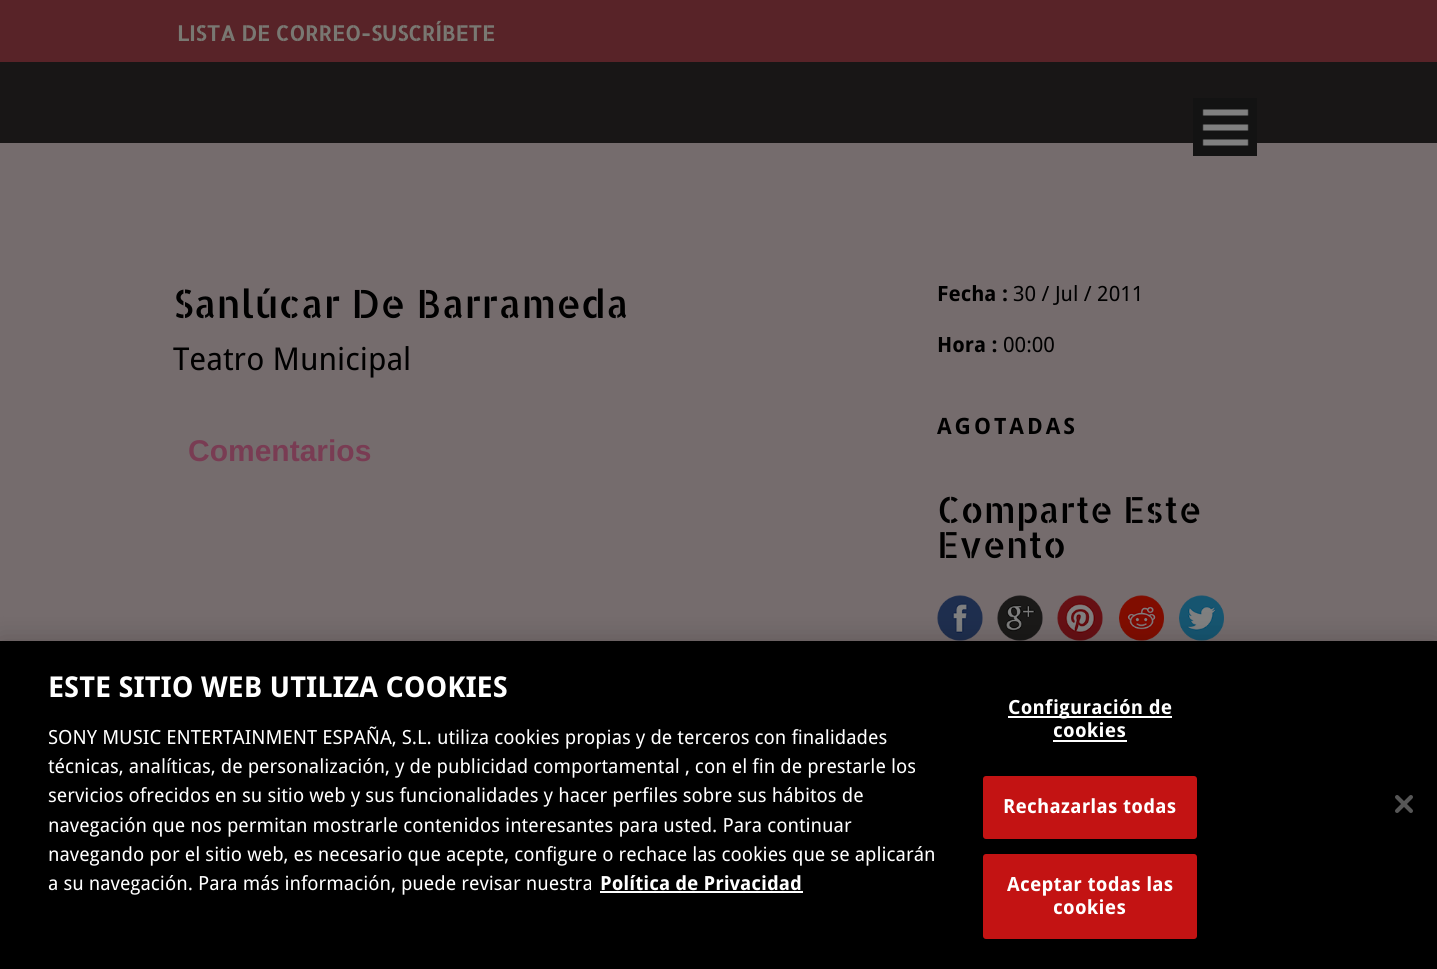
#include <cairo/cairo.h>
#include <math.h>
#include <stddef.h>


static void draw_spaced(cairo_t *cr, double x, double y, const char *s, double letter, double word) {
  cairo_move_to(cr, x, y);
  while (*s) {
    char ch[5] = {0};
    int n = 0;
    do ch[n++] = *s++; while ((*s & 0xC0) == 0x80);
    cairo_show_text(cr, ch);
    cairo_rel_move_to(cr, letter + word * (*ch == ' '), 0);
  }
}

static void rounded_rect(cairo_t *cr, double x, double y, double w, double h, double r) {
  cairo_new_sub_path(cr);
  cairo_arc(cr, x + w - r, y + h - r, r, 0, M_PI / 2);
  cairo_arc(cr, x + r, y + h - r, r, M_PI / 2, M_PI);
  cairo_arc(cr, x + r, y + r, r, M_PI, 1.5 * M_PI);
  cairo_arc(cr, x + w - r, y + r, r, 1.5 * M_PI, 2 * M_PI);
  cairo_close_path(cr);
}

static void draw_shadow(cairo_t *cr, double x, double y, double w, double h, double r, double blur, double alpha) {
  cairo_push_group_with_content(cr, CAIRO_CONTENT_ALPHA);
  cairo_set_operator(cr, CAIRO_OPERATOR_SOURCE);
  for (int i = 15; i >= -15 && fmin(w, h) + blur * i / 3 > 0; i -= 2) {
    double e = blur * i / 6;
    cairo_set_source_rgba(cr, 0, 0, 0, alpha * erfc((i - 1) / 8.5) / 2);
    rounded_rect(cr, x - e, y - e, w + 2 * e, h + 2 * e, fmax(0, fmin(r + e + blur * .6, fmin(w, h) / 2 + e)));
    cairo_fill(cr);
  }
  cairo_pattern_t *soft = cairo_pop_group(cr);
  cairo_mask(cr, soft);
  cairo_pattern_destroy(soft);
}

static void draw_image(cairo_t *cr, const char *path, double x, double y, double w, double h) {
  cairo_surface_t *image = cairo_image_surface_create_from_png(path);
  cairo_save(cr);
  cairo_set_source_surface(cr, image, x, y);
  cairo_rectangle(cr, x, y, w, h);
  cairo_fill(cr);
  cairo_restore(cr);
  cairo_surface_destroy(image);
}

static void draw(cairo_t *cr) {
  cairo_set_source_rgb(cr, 117 / 255.0, 108 / 255.0, 109 / 255.0);
  cairo_paint(cr);
  cairo_set_source_rgb(cr, 88 / 255.0, 35 / 255.0, 40 / 255.0);
  cairo_rectangle(cr, 0, 0, 1437, 62);
  cairo_fill(cr);
  cairo_set_source_rgb(cr, 24 / 255.0, 22 / 255.0, 22 / 255.0);
  cairo_rectangle(cr, 0, 62, 1437, 81);
  cairo_fill(cr);
  cairo_set_source_rgb(cr, 19 / 255.0, 19 / 255.0, 19 / 255.0);
  cairo_rectangle(cr, 1193, 98, 64, 58);
  cairo_fill(cr);
  draw_image(cr, "images/1.png", 1202, 109, 47, 37);
  draw_image(cr, "images/2.png", 937, 595, 46, 46);
  draw_image(cr, "images/3.png", 997, 595, 46, 46);
  draw_image(cr, "images/4.png", 1057, 595, 46, 46);
  draw_image(cr, "images/5.png", 1119, 595, 45, 46);
  draw_image(cr, "images/6.png", 1179, 595, 45, 46);
  cairo_set_source_rgb(cr, 0, 0, 0);
  draw_shadow(cr, 0, 641, 1437, 328, 0, 13.5, 0.2);
  cairo_set_source_rgb(cr, 0, 0, 0);
  cairo_rectangle(cr, 0, 641, 1437, 328);
  cairo_fill(cr);
  cairo_set_source_rgb(cr, 1, 1, 1);
  cairo_rectangle(cr, 600, 891, 203, 2);
  cairo_fill(cr);
  cairo_rectangle(cr, 1008, 716, 164, 2);
  cairo_fill(cr);
  cairo_rectangle(cr, 1053, 740, 74, 2);
  cairo_fill(cr);
  cairo_set_source_rgb(cr, 195 / 255.0, 19 / 255.0, 19 / 255.0);
  rounded_rect(cr, 984, 777, 212, 61, 2);
  cairo_fill_preserve(cr);
  cairo_stroke(cr);
  rounded_rect(cr, 984, 855, 212, 83, 2);
  cairo_fill_preserve(cr);
  cairo_stroke(cr);
  draw_image(cr, "images/7.png", 1395, 795, 18, 18);
  cairo_select_font_face(cr, "Allerta Stencil", CAIRO_FONT_SLANT_NORMAL, CAIRO_FONT_WEIGHT_BOLD);
  cairo_set_font_size(cr, 21);
  cairo_set_source_rgb(cr, 121 / 255.0, 120 / 255.0, 114 / 255.0);
  cairo_move_to(cr, 177, 41);
  cairo_show_text(cr, "LISTA DE CORREO-SUSCRÍBETE");
  cairo_select_font_face(cr, "Allerta Stencil", CAIRO_FONT_SLANT_NORMAL, CAIRO_FONT_WEIGHT_NORMAL);
  cairo_set_font_size(cr, 39);
  cairo_set_source_rgb(cr, 0, 0, 0);
  cairo_move_to(cr, 173, 318);
  cairo_show_text(cr, "Sanlúcar De Barrameda");
  cairo_save(cr);
  cairo_rectangle(cr, 173, 278, 705, 258);
  cairo_clip(cr);
  cairo_select_font_face(cr, "Droid Sans", CAIRO_FONT_SLANT_NORMAL, CAIRO_FONT_WEIGHT_NORMAL);
  cairo_set_font_size(cr, 31.5);
  cairo_move_to(cr, 173, 370);
  cairo_show_text(cr, "Teatro Municipal");
  cairo_restore(cr);
  cairo_select_font_face(cr, "Liberation Sans", CAIRO_FONT_SLANT_NORMAL, CAIRO_FONT_WEIGHT_BOLD);
  cairo_set_font_size(cr, 30);
  cairo_set_source_rgb(cr, 121 / 255.0, 60 / 255.0, 83 / 255.0);
  cairo_move_to(cr, 188, 461);
  cairo_show_text(cr, "Comentarios");
  cairo_select_font_face(cr, "Droid Sans", CAIRO_FONT_SLANT_NORMAL, CAIRO_FONT_WEIGHT_BOLD);
  cairo_set_font_size(cr, 21);
  cairo_set_source_rgb(cr, 0, 0, 0);
  cairo_move_to(cr, 937, 301);
  cairo_show_text(cr, "Fecha :");
  cairo_select_font_face(cr, "Droid Sans", CAIRO_FONT_SLANT_NORMAL, CAIRO_FONT_WEIGHT_NORMAL);
  cairo_move_to(cr, 1013, 301);
  cairo_show_text(cr, "30 / Jul / 2011");
  cairo_select_font_face(cr, "Droid Sans", CAIRO_FONT_SLANT_NORMAL, CAIRO_FONT_WEIGHT_BOLD);
  cairo_move_to(cr, 937, 352);
  cairo_show_text(cr, "Hora :");
  cairo_select_font_face(cr, "Droid Sans", CAIRO_FONT_SLANT_NORMAL, CAIRO_FONT_WEIGHT_NORMAL);
  cairo_move_to(cr, 1003, 352);
  cairo_show_text(cr, "00:00");
  cairo_select_font_face(cr, "Droid Sans", CAIRO_FONT_SLANT_NORMAL, CAIRO_FONT_WEIGHT_BOLD);
  cairo_set_font_size(cr, 22.5);
  draw_spaced(cr, 937, 434, "AGOTADAS", 3, 0);
  cairo_select_font_face(cr, "Allerta Stencil", CAIRO_FONT_SLANT_NORMAL, CAIRO_FONT_WEIGHT_NORMAL);
  cairo_set_font_size(cr, 36);
  cairo_move_to(cr, 937, 523);
  cairo_show_text(cr, "Comparte Este");
  cairo_move_to(cr, 937, 558);
  cairo_show_text(cr, "Evento");
  cairo_select_font_face(cr, "Droid Sans", CAIRO_FONT_SLANT_NORMAL, CAIRO_FONT_WEIGHT_BOLD);
  cairo_set_font_size(cr, 28.75);
  cairo_set_source_rgb(cr, 1, 1, 1);
  cairo_move_to(cr, 48, 697);
  cairo_show_text(cr, "ESTE SITIO WEB UTILIZA COOKIES");
  cairo_select_font_face(cr, "Droid Sans", CAIRO_FONT_SLANT_NORMAL, CAIRO_FONT_WEIGHT_NORMAL);
  cairo_set_font_size(cr, 19.5);
  cairo_move_to(cr, 48, 744);
  cairo_show_text(cr, "SONY MUSIC ENTERTAINMENT ESPAÑA, S.L. utiliza cookies propias y de terceros con finalidades");
  cairo_move_to(cr, 48, 773);
  cairo_show_text(cr, "técnicas, analíticas, de personalización, y de publicidad comportamental , con el fin de prestarle los");
  cairo_move_to(cr, 48, 802);
  cairo_show_text(cr, "servicios ofrecidos en su sitio web y sus funcionalidades y hacer perfiles sobre sus hábitos de");
  cairo_move_to(cr, 48, 832);
  cairo_show_text(cr, "navegación que nos permitan mostrarle contenidos interesantes para usted. Para continuar");
  cairo_move_to(cr, 48, 861);
  cairo_show_text(cr, "navegando por el sitio web, es necesario que acepte, configure o rechace las cookies que se aplicarán");
  cairo_move_to(cr, 48, 890);
  cairo_show_text(cr, "a su navegación. Para más información, puede revisar nuestra");
  cairo_select_font_face(cr, "Droid Sans", CAIRO_FONT_SLANT_NORMAL, CAIRO_FONT_WEIGHT_BOLD);
  cairo_move_to(cr, 600, 890);
  cairo_show_text(cr, "Política de Privacidad");
  draw_spaced(cr, 1008, 714, "Configuración de", 0.25, 0);
  draw_spaced(cr, 1053, 737, "cookies", 0.25, 0);
  draw_spaced(cr, 1003, 813, "Rechazarlas todas", 0.25, 0);
  draw_spaced(cr, 1007, 891, "Aceptar todas las", 0.25, 0);
  draw_spaced(cr, 1053, 914, "cookies", 0.25, 0);
}

int main(void) {
  cairo_surface_t *surface = cairo_image_surface_create(CAIRO_FORMAT_RGB24, 1437, 969);
  cairo_t *cr = cairo_create(surface);
  cairo_font_options_t *options = cairo_font_options_create();
  cairo_font_options_set_hint_metrics(options, CAIRO_HINT_METRICS_OFF);
  cairo_font_options_set_hint_style(options, CAIRO_HINT_STYLE_NONE);
  cairo_set_font_options(cr, options);
  cairo_set_miter_limit(cr, 4);
  draw(cr);
  cairo_surface_write_to_png(surface, "out.png");
  cairo_font_options_destroy(options);
  cairo_destroy(cr);
  cairo_surface_destroy(surface);
  return 0;
}
